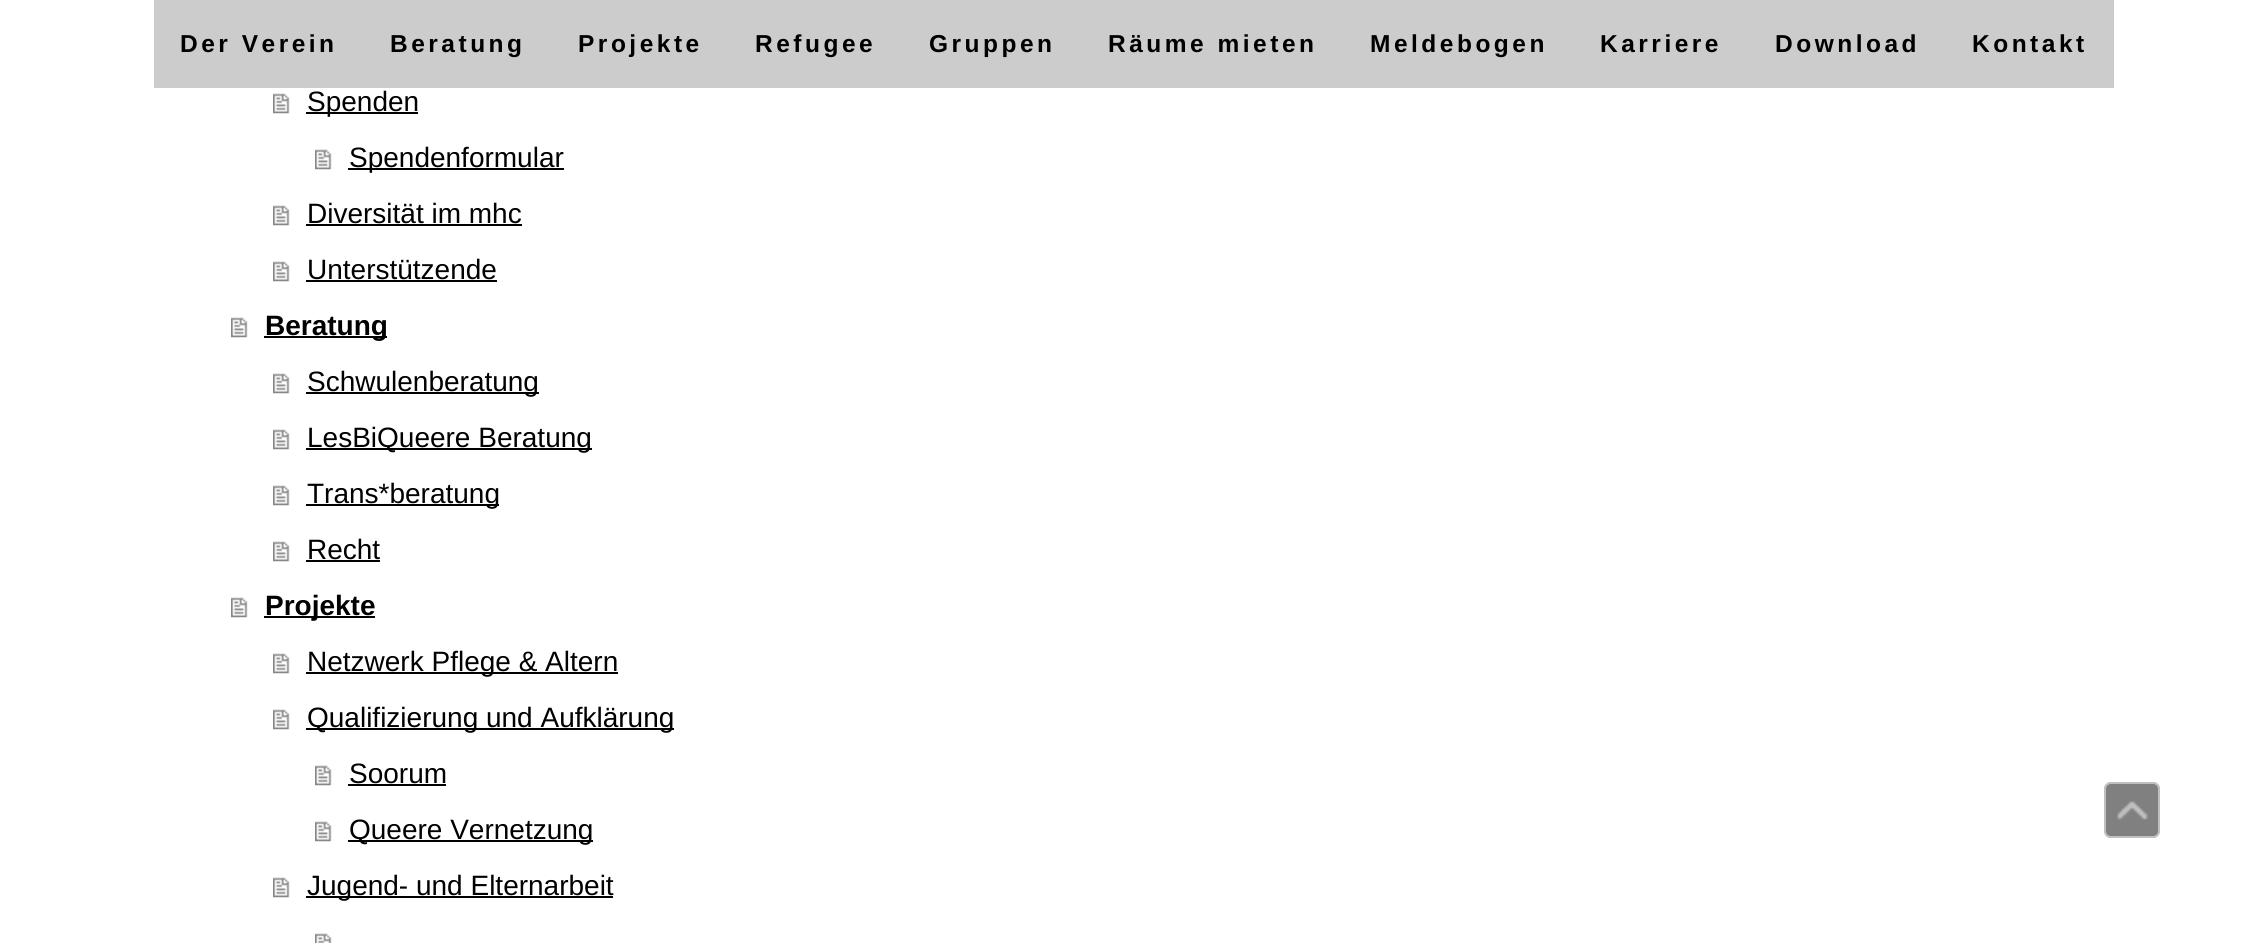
#include <cairo/cairo.h>
#include <math.h>
#include <stddef.h>


static void draw_spaced(cairo_t *cr, double x, double y, const char *s, double letter, double word) {
  cairo_move_to(cr, x, y);
  while (*s) {
    char ch[5] = {0};
    int n = 0;
    do ch[n++] = *s++; while ((*s & 0xC0) == 0x80);
    cairo_show_text(cr, ch);
    cairo_rel_move_to(cr, letter + word * (*ch == ' '), 0);
  }
}

static void rounded_rect(cairo_t *cr, double x, double y, double w, double h, double r) {
  cairo_new_sub_path(cr);
  cairo_arc(cr, x + w - r, y + h - r, r, 0, M_PI / 2);
  cairo_arc(cr, x + r, y + h - r, r, M_PI / 2, M_PI);
  cairo_arc(cr, x + r, y + r, r, M_PI, 1.5 * M_PI);
  cairo_arc(cr, x + w - r, y + r, r, 1.5 * M_PI, 2 * M_PI);
  cairo_close_path(cr);
}

static void draw_image(cairo_t *cr, const char *path, double x, double y, double w, double h) {
  cairo_surface_t *image = cairo_image_surface_create_from_png(path);
  cairo_save(cr);
  cairo_set_source_surface(cr, image, x, y);
  cairo_rectangle(cr, x, y, w, h);
  cairo_fill(cr);
  cairo_restore(cr);
  cairo_surface_destroy(image);
}

static void draw(cairo_t *cr) {
  cairo_set_source_rgb(cr, 1, 1, 1);
  cairo_paint(cr);
  cairo_set_source_rgb(cr, 204 / 255.0, 204 / 255.0, 204 / 255.0);
  cairo_rectangle(cr, 154, 0, 1960, 88);
  cairo_fill(cr);
  draw_image(cr, "images/1.png", 273, 93, 17, 21);
  cairo_set_source_rgb(cr, 0, 0, 0);
  cairo_rectangle(cr, 306, 112, 112, 2);
  cairo_fill(cr);
  draw_image(cr, "images/2.png", 315, 149, 17, 21);
  cairo_rectangle(cr, 348, 168, 216, 2);
  cairo_fill(cr);
  draw_image(cr, "images/1.png", 273, 205, 17, 21);
  cairo_rectangle(cr, 306, 224, 216, 2);
  cairo_fill(cr);
  draw_image(cr, "images/1.png", 273, 261, 17, 21);
  cairo_rectangle(cr, 306, 280, 191, 2);
  cairo_fill(cr);
  draw_image(cr, "images/2.png", 231, 317, 17, 21);
  cairo_rectangle(cr, 264, 336, 123, 2);
  cairo_fill(cr);
  draw_image(cr, "images/1.png", 273, 373, 17, 21);
  cairo_rectangle(cr, 306, 392, 233, 2);
  cairo_fill(cr);
  draw_image(cr, "images/1.png", 273, 429, 17, 21);
  cairo_rectangle(cr, 306, 448, 286, 2);
  cairo_fill(cr);
  draw_image(cr, "images/1.png", 273, 485, 17, 21);
  cairo_rectangle(cr, 306, 504, 193, 2);
  cairo_fill(cr);
  draw_image(cr, "images/1.png", 273, 541, 17, 21);
  cairo_rectangle(cr, 306, 560, 74, 2);
  cairo_fill(cr);
  draw_image(cr, "images/2.png", 231, 597, 17, 21);
  cairo_rectangle(cr, 264, 616, 111, 2);
  cairo_fill(cr);
  draw_image(cr, "images/1.png", 273, 653, 17, 21);
  cairo_rectangle(cr, 306, 672, 312, 2);
  cairo_fill(cr);
  draw_image(cr, "images/1.png", 273, 709, 17, 21);
  cairo_rectangle(cr, 306, 728, 368, 2);
  cairo_fill(cr);
  draw_image(cr, "images/2.png", 315, 765, 17, 21);
  cairo_rectangle(cr, 348, 784, 98, 2);
  cairo_fill(cr);
  draw_image(cr, "images/2.png", 315, 821, 17, 21);
  cairo_rectangle(cr, 348, 840, 245, 2);
  cairo_fill(cr);
  draw_image(cr, "images/1.png", 273, 877, 17, 21);
  cairo_rectangle(cr, 306, 896, 307, 2);
  cairo_fill(cr);
  draw_image(cr, "images/3.png", 315, 933, 17, 10);
  cairo_set_source_rgb(cr, 128 / 255.0, 128 / 255.0, 128 / 255.0);
  rounded_rect(cr, 2104, 782, 56, 56, 7);
  cairo_fill(cr);
  rounded_rect(cr, 2105, 783, 54, 54, 6);
  cairo_set_source_rgba(cr, 1, 1, 1, 0.5);
  cairo_stroke(cr);
  draw_image(cr, "images/4.png", 2117, 801, 31, 19);
  cairo_select_font_face(cr, "Liberation Sans", CAIRO_FONT_SLANT_NORMAL, CAIRO_FONT_WEIGHT_BOLD);
  cairo_set_font_size(cr, 24.5);
  cairo_set_source_rgb(cr, 0, 0, 0);
  draw_spaced(cr, 180, 52, "Der Verein", 3.5, 0);
  draw_spaced(cr, 390, 52, "Beratung", 3.5, 0);
  draw_spaced(cr, 578, 52, "Projekte", 3.5, 0);
  draw_spaced(cr, 755, 52, "Refugee", 3.5, 0);
  draw_spaced(cr, 929, 52, "Gruppen", 3.5, 0);
  draw_spaced(cr, 1108, 52, "Räume mieten", 3.5, 0);
  draw_spaced(cr, 1370, 52, "Meldebogen", 3.5, 0);
  draw_spaced(cr, 1600, 52, "Karriere", 3.5, 0);
  draw_spaced(cr, 1775, 52, "Download", 3.5, 0);
  draw_spaced(cr, 1972, 52, "Kontakt", 3.5, 0);
  cairo_select_font_face(cr, "Liberation Sans", CAIRO_FONT_SLANT_NORMAL, CAIRO_FONT_WEIGHT_NORMAL);
  cairo_set_font_size(cr, 28);
  cairo_move_to(cr, 307, 111);
  cairo_show_text(cr, "Spenden");
  cairo_move_to(cr, 349, 167);
  cairo_show_text(cr, "Spendenformular");
  cairo_move_to(cr, 307, 223);
  cairo_show_text(cr, "Diversität im mhc");
  cairo_move_to(cr, 307, 279);
  cairo_show_text(cr, "Unterstützende");
  cairo_select_font_face(cr, "Liberation Sans", CAIRO_FONT_SLANT_NORMAL, CAIRO_FONT_WEIGHT_BOLD);
  cairo_move_to(cr, 265, 335);
  cairo_show_text(cr, "Beratung");
  cairo_select_font_face(cr, "Liberation Sans", CAIRO_FONT_SLANT_NORMAL, CAIRO_FONT_WEIGHT_NORMAL);
  cairo_move_to(cr, 307, 391);
  cairo_show_text(cr, "Schwulenberatung");
  cairo_move_to(cr, 307, 447);
  cairo_show_text(cr, "LesBiQueere Beratung");
  cairo_move_to(cr, 307, 503);
  cairo_show_text(cr, "Trans*beratung");
  cairo_move_to(cr, 307, 559);
  cairo_show_text(cr, "Recht");
  cairo_select_font_face(cr, "Liberation Sans", CAIRO_FONT_SLANT_NORMAL, CAIRO_FONT_WEIGHT_BOLD);
  cairo_move_to(cr, 265, 615);
  cairo_show_text(cr, "Projekte");
  cairo_select_font_face(cr, "Liberation Sans", CAIRO_FONT_SLANT_NORMAL, CAIRO_FONT_WEIGHT_NORMAL);
  cairo_move_to(cr, 307, 671);
  cairo_show_text(cr, "Netzwerk Pflege & Altern");
  cairo_move_to(cr, 307, 727);
  cairo_show_text(cr, "Qualifizierung und Aufklärung");
  cairo_move_to(cr, 349, 783);
  cairo_show_text(cr, "Soorum");
  cairo_move_to(cr, 349, 839);
  cairo_show_text(cr, "Queere Vernetzung");
  cairo_move_to(cr, 307, 895);
  cairo_show_text(cr, "Jugend- und Elternarbeit");
}

int main(void) {
  cairo_surface_t *surface = cairo_image_surface_create(CAIRO_FORMAT_RGB24, 2268, 943);
  cairo_t *cr = cairo_create(surface);
  cairo_font_options_t *options = cairo_font_options_create();
  cairo_font_options_set_hint_metrics(options, CAIRO_HINT_METRICS_OFF);
  cairo_font_options_set_hint_style(options, CAIRO_HINT_STYLE_NONE);
  cairo_set_font_options(cr, options);
  cairo_set_miter_limit(cr, 4);
  draw(cr);
  cairo_surface_write_to_png(surface, "out.png");
  cairo_font_options_destroy(options);
  cairo_destroy(cr);
  cairo_surface_destroy(surface);
  return 0;
}
